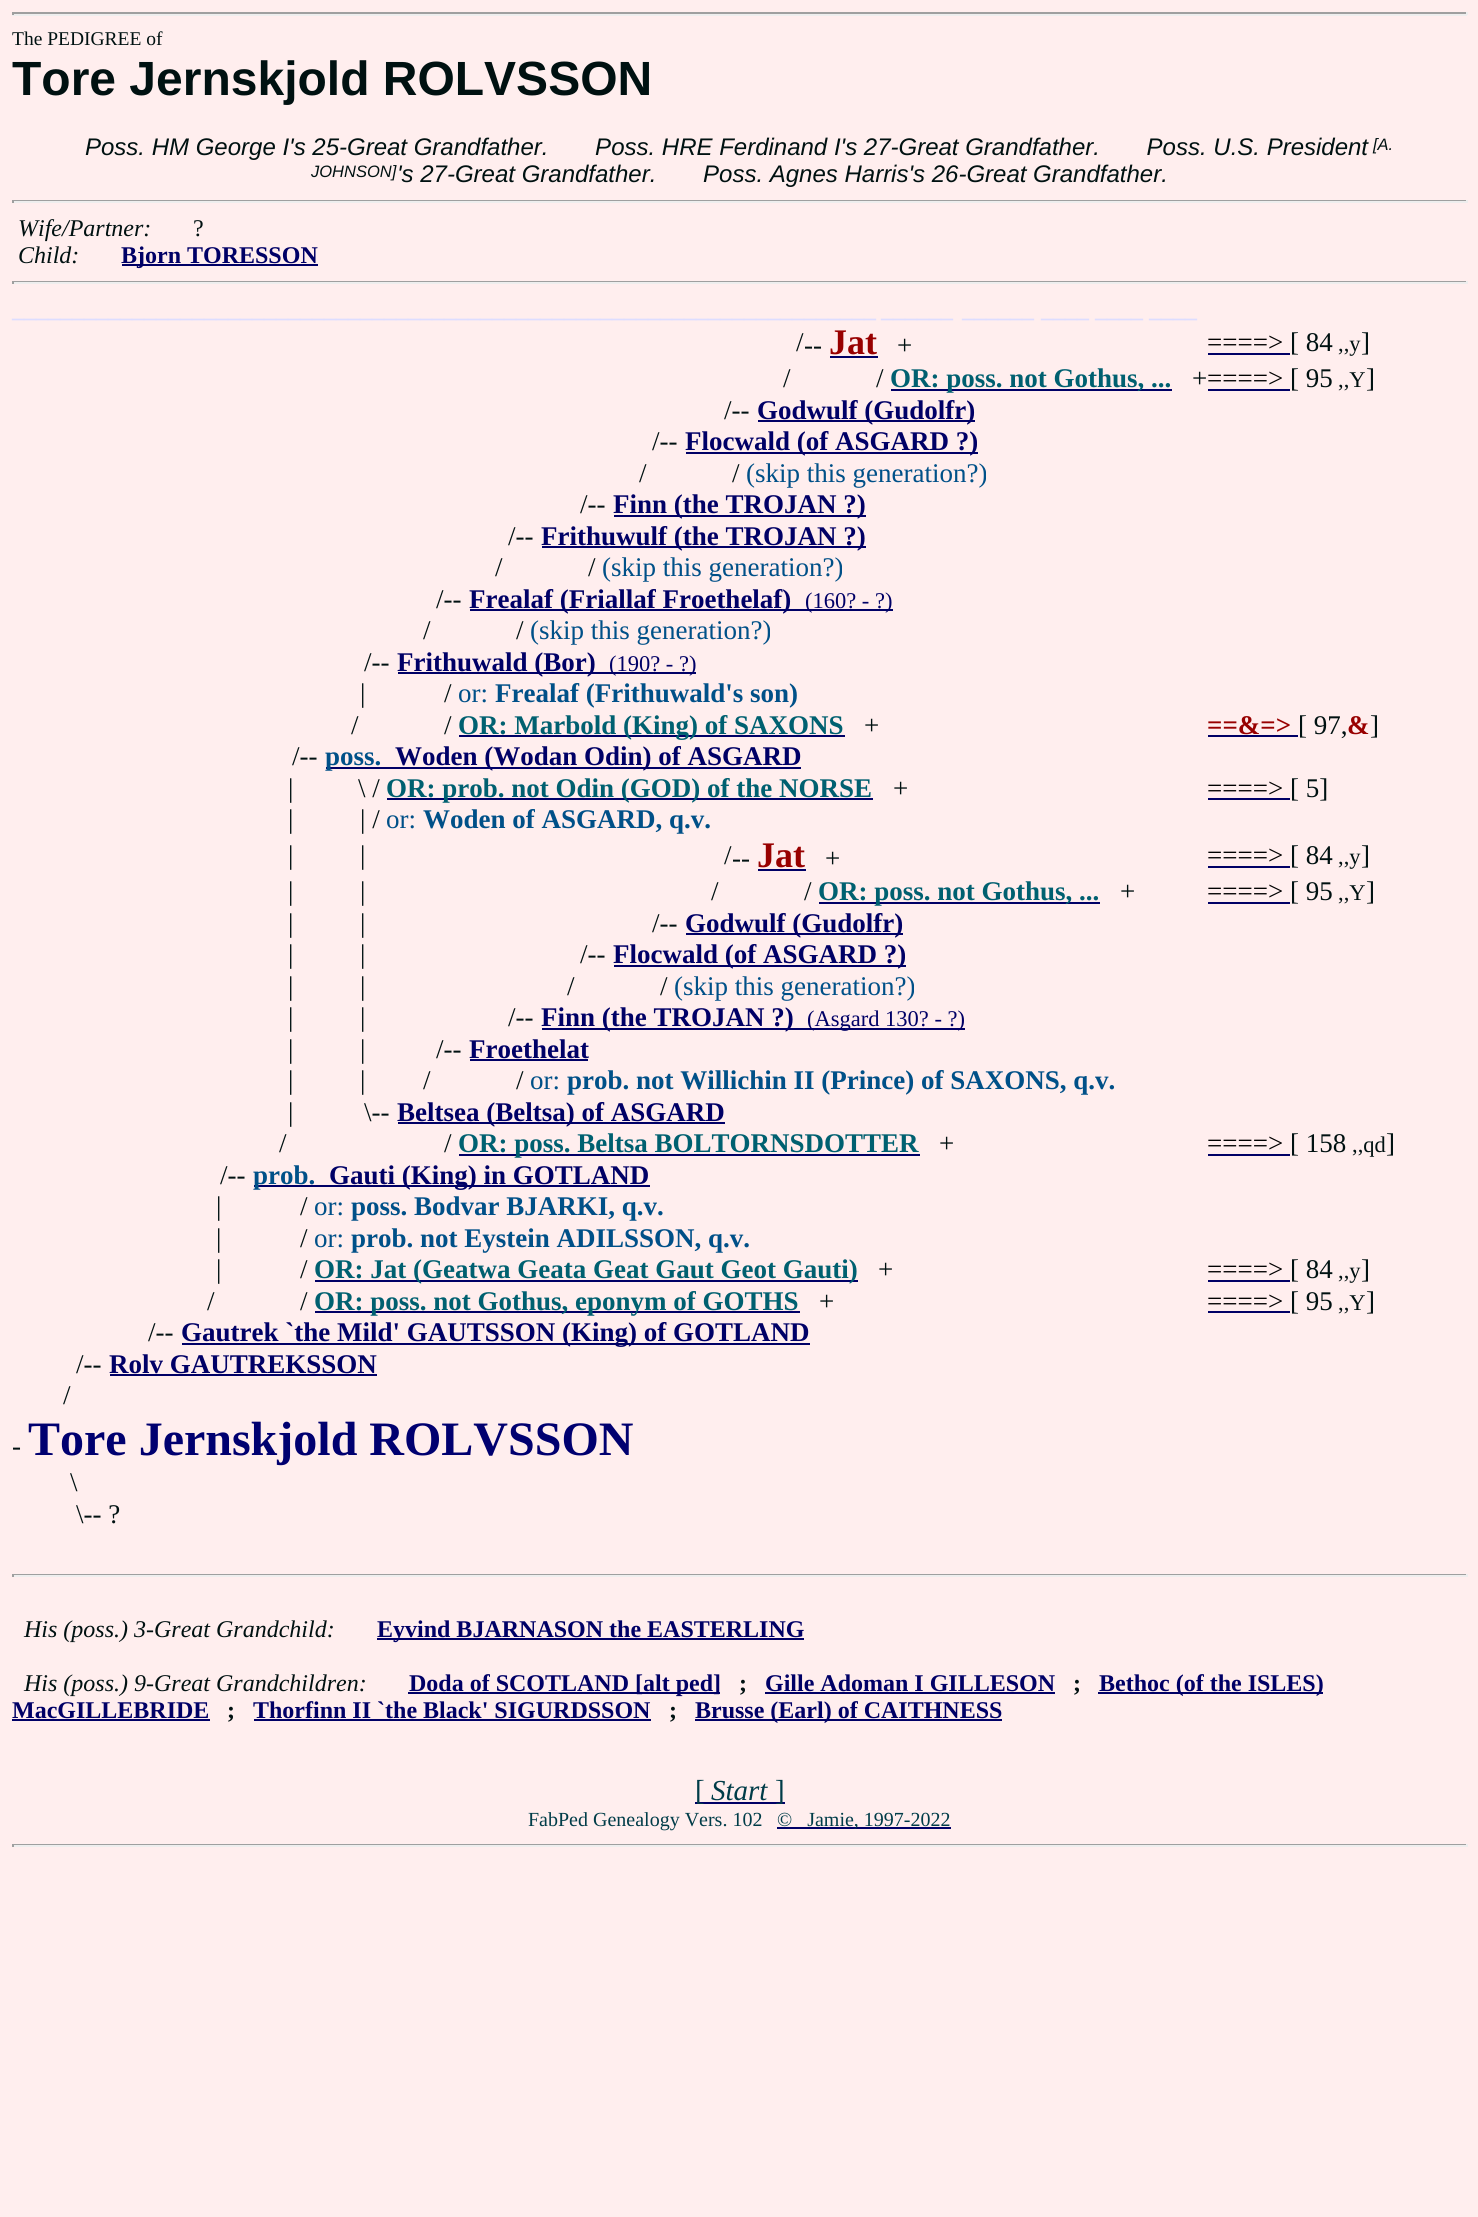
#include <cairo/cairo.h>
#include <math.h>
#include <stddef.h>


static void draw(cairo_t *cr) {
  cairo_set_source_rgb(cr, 1, 238 / 255.0, 238 / 255.0);
  cairo_paint(cr);
  cairo_set_source_rgb(cr, 159 / 255.0, 159 / 255.0, 159 / 255.0);
  cairo_rectangle(cr, 12, 12, 1455, 2);
  cairo_fill(cr);
  cairo_set_source_rgb(cr, 238 / 255.0, 238 / 255.0, 238 / 255.0);
  cairo_rectangle(cr, 1466, 12, 2, 3);
  cairo_fill(cr);
  cairo_rectangle(cr, 12, 14, 1455, 2);
  cairo_fill(cr);
  cairo_set_source_rgb(cr, 159 / 255.0, 159 / 255.0, 159 / 255.0);
  cairo_rectangle(cr, 12, 12, 2, 3);
  cairo_fill(cr);
  cairo_rectangle(cr, 12, 200, 1455, 1);
  cairo_fill(cr);
  cairo_set_source_rgb(cr, 238 / 255.0, 238 / 255.0, 238 / 255.0);
  cairo_rectangle(cr, 1466, 200, 2, 3);
  cairo_fill(cr);
  cairo_rectangle(cr, 12, 201, 1455, 2);
  cairo_fill(cr);
  cairo_set_source_rgb(cr, 159 / 255.0, 159 / 255.0, 159 / 255.0);
  cairo_rectangle(cr, 12, 200, 2, 3);
  cairo_fill(cr);
  cairo_set_source_rgb(cr, 0, 0, 102 / 255.0);
  cairo_rectangle(cr, 122, 264, 196, 2);
  cairo_fill(cr);
  cairo_set_source_rgb(cr, 159 / 255.0, 159 / 255.0, 159 / 255.0);
  cairo_rectangle(cr, 12, 281, 1455, 1);
  cairo_fill(cr);
  cairo_set_source_rgb(cr, 238 / 255.0, 238 / 255.0, 238 / 255.0);
  cairo_rectangle(cr, 1466, 281, 2, 3);
  cairo_fill(cr);
  cairo_rectangle(cr, 12, 282, 1455, 2);
  cairo_fill(cr);
  cairo_set_source_rgb(cr, 159 / 255.0, 159 / 255.0, 159 / 255.0);
  cairo_rectangle(cr, 12, 281, 2, 3);
  cairo_fill(cr);
  cairo_set_source_rgb(cr, 0, 0, 102 / 255.0);
  cairo_rectangle(cr, 830, 356, 48, 2);
  cairo_fill(cr);
  cairo_rectangle(cr, 1208, 353, 82, 2);
  cairo_fill(cr);
  cairo_rectangle(cr, 891, 389, 281, 2);
  cairo_fill(cr);
  cairo_rectangle(cr, 1208, 389, 82, 2);
  cairo_fill(cr);
  cairo_rectangle(cr, 758, 420, 217, 2);
  cairo_fill(cr);
  cairo_rectangle(cr, 686, 452, 292, 2);
  cairo_fill(cr);
  cairo_rectangle(cr, 614, 515, 252, 2);
  cairo_fill(cr);
  cairo_rectangle(cr, 542, 546, 324, 2);
  cairo_fill(cr);
  cairo_rectangle(cr, 470, 609, 423, 2);
  cairo_fill(cr);
  cairo_rectangle(cr, 398, 672, 298, 2);
  cairo_fill(cr);
  cairo_rectangle(cr, 459, 735, 386, 2);
  cairo_fill(cr);
  cairo_rectangle(cr, 1208, 735, 90, 2);
  cairo_fill(cr);
  cairo_rectangle(cr, 326, 767, 475, 2);
  cairo_fill(cr);
  cairo_rectangle(cr, 387, 798, 486, 2);
  cairo_fill(cr);
  cairo_rectangle(cr, 1208, 798, 82, 2);
  cairo_fill(cr);
  cairo_rectangle(cr, 758, 869, 48, 2);
  cairo_fill(cr);
  cairo_rectangle(cr, 1208, 866, 82, 2);
  cairo_fill(cr);
  cairo_rectangle(cr, 819, 902, 281, 2);
  cairo_fill(cr);
  cairo_rectangle(cr, 1208, 902, 82, 2);
  cairo_fill(cr);
  cairo_rectangle(cr, 686, 933, 217, 2);
  cairo_fill(cr);
  cairo_rectangle(cr, 614, 965, 292, 2);
  cairo_fill(cr);
  cairo_rectangle(cr, 542, 1028, 423, 2);
  cairo_fill(cr);
  cairo_rectangle(cr, 470, 1059, 118, 2);
  cairo_fill(cr);
  cairo_rectangle(cr, 398, 1122, 327, 2);
  cairo_fill(cr);
  cairo_rectangle(cr, 459, 1154, 461, 2);
  cairo_fill(cr);
  cairo_rectangle(cr, 1208, 1154, 82, 2);
  cairo_fill(cr);
  cairo_rectangle(cr, 254, 1185, 396, 2);
  cairo_fill(cr);
  cairo_rectangle(cr, 315, 1280, 543, 2);
  cairo_fill(cr);
  cairo_rectangle(cr, 1208, 1280, 82, 2);
  cairo_fill(cr);
  cairo_rectangle(cr, 315, 1311, 485, 2);
  cairo_fill(cr);
  cairo_rectangle(cr, 1208, 1311, 82, 2);
  cairo_fill(cr);
  cairo_rectangle(cr, 182, 1343, 628, 2);
  cairo_fill(cr);
  cairo_rectangle(cr, 110, 1374, 267, 2);
  cairo_fill(cr);
  cairo_set_source_rgb(cr, 159 / 255.0, 159 / 255.0, 159 / 255.0);
  cairo_rectangle(cr, 12, 1574, 1455, 1);
  cairo_fill(cr);
  cairo_set_source_rgb(cr, 238 / 255.0, 238 / 255.0, 238 / 255.0);
  cairo_rectangle(cr, 1466, 1574, 2, 3);
  cairo_fill(cr);
  cairo_rectangle(cr, 12, 1575, 1455, 2);
  cairo_fill(cr);
  cairo_set_source_rgb(cr, 159 / 255.0, 159 / 255.0, 159 / 255.0);
  cairo_rectangle(cr, 12, 1574, 2, 3);
  cairo_fill(cr);
  cairo_set_source_rgb(cr, 0, 0, 102 / 255.0);
  cairo_rectangle(cr, 377, 1638, 427, 2);
  cairo_fill(cr);
  cairo_rectangle(cr, 408, 1692, 312, 2);
  cairo_fill(cr);
  cairo_rectangle(cr, 765, 1692, 290, 2);
  cairo_fill(cr);
  cairo_rectangle(cr, 1098, 1692, 225, 2);
  cairo_fill(cr);
  cairo_rectangle(cr, 12, 1719, 198, 2);
  cairo_fill(cr);
  cairo_rectangle(cr, 254, 1719, 397, 2);
  cairo_fill(cr);
  cairo_rectangle(cr, 695, 1719, 307, 2);
  cairo_fill(cr);
  cairo_rectangle(cr, 695, 1802, 90, 2);
  cairo_fill(cr);
  cairo_rectangle(cr, 777, 1827, 174, 2);
  cairo_fill(cr);
  cairo_set_source_rgb(cr, 159 / 255.0, 159 / 255.0, 159 / 255.0);
  cairo_rectangle(cr, 12, 1844, 1455, 1);
  cairo_fill(cr);
  cairo_set_source_rgb(cr, 238 / 255.0, 238 / 255.0, 238 / 255.0);
  cairo_rectangle(cr, 1466, 1844, 2, 3);
  cairo_fill(cr);
  cairo_rectangle(cr, 12, 1845, 1455, 2);
  cairo_fill(cr);
  cairo_set_source_rgb(cr, 159 / 255.0, 159 / 255.0, 159 / 255.0);
  cairo_rectangle(cr, 12, 1844, 2, 3);
  cairo_fill(cr);
  cairo_select_font_face(cr, "Liberation Serif", CAIRO_FONT_SLANT_NORMAL, CAIRO_FONT_WEIGHT_NORMAL);
  cairo_set_font_size(cr, 19.5);
  cairo_set_source_rgb(cr, 0, 17 / 255.0, 17 / 255.0);
  cairo_move_to(cr, 12, 45);
  cairo_show_text(cr, "The PEDIGREE of");
  cairo_select_font_face(cr, "Liberation Sans", CAIRO_FONT_SLANT_NORMAL, CAIRO_FONT_WEIGHT_BOLD);
  cairo_set_font_size(cr, 48);
  cairo_move_to(cr, 12, 95);
  cairo_show_text(cr, "Tore Jernskjold ROLVSSON");
  cairo_select_font_face(cr, "Liberation Sans", CAIRO_FONT_SLANT_ITALIC, CAIRO_FONT_WEIGHT_NORMAL);
  cairo_set_font_size(cr, 24);
  cairo_move_to(cr, 85, 155);
  cairo_show_text(cr, "Poss. HM George I's 25-Great Grandfather.       Poss. HRE Ferdinand I's 27-Great Grandfather.       Poss. U.S. President");
  cairo_set_font_size(cr, 16.5);
  cairo_move_to(cr, 1373, 150);
  cairo_show_text(cr, "[A.");
  cairo_move_to(cr, 311, 177);
  cairo_show_text(cr, "JOHNSON]");
  cairo_set_font_size(cr, 24);
  cairo_move_to(cr, 397, 182);
  cairo_show_text(cr, "'s 27-Great Grandfather.       Poss. Agnes Harris's 26-Great Grandfather.");
  cairo_select_font_face(cr, "Liberation Serif", CAIRO_FONT_SLANT_ITALIC, CAIRO_FONT_WEIGHT_NORMAL);
  cairo_move_to(cr, 18, 236);
  cairo_show_text(cr, "Wife/Partner:");
  cairo_select_font_face(cr, "Liberation Serif", CAIRO_FONT_SLANT_NORMAL, CAIRO_FONT_WEIGHT_NORMAL);
  cairo_move_to(cr, 193, 236);
  cairo_show_text(cr, "?");
  cairo_select_font_face(cr, "Liberation Serif", CAIRO_FONT_SLANT_ITALIC, CAIRO_FONT_WEIGHT_NORMAL);
  cairo_move_to(cr, 18, 263);
  cairo_show_text(cr, "Child:");
  cairo_select_font_face(cr, "Liberation Serif", CAIRO_FONT_SLANT_NORMAL, CAIRO_FONT_WEIGHT_BOLD);
  cairo_set_source_rgb(cr, 0, 0, 102 / 255.0);
  cairo_move_to(cr, 121, 263);
  cairo_show_text(cr, "Bjorn TORESSON");
  cairo_set_source_rgb(cr, 221 / 255.0, 221 / 255.0, 1);
  cairo_move_to(cr, 12, 317);
  cairo_show_text(cr, "________________________________________________________________________");
  cairo_move_to(cr, 881, 317);
  cairo_show_text(cr, "______");
  cairo_move_to(cr, 962, 317);
  cairo_show_text(cr, "______");
  cairo_move_to(cr, 1041, 317);
  cairo_show_text(cr, "____ ____ ____");
  cairo_select_font_face(cr, "Liberation Serif", CAIRO_FONT_SLANT_NORMAL, CAIRO_FONT_WEIGHT_NORMAL);
  cairo_set_font_size(cr, 27);
  cairo_set_source_rgb(cr, 0, 17 / 255.0, 17 / 255.0);
  cairo_move_to(cr, 796, 351);
  cairo_show_text(cr, "/");
  cairo_move_to(cr, 804, 354);
  cairo_show_text(cr, "--");
  cairo_select_font_face(cr, "Liberation Serif", CAIRO_FONT_SLANT_NORMAL, CAIRO_FONT_WEIGHT_BOLD);
  cairo_set_font_size(cr, 36);
  cairo_set_source_rgb(cr, 152 / 255.0, 0, 0);
  cairo_move_to(cr, 829, 354);
  cairo_show_text(cr, "Jat");
  cairo_select_font_face(cr, "Liberation Serif", CAIRO_FONT_SLANT_NORMAL, CAIRO_FONT_WEIGHT_NORMAL);
  cairo_set_font_size(cr, 27);
  cairo_set_source_rgb(cr, 0, 17 / 255.0, 17 / 255.0);
  cairo_move_to(cr, 897, 354);
  cairo_show_text(cr, "+");
  cairo_set_source_rgb(cr, 0, 0, 0);
  cairo_move_to(cr, 1207, 351);
  cairo_show_text(cr, "====>");
  cairo_set_source_rgb(cr, 0, 17 / 255.0, 17 / 255.0);
  cairo_move_to(cr, 1290, 351);
  cairo_show_text(cr, "[ 84");
  cairo_set_font_size(cr, 22.5);
  cairo_move_to(cr, 1338, 351);
  cairo_show_text(cr, ",,y");
  cairo_set_font_size(cr, 27);
  cairo_move_to(cr, 1361, 351);
  cairo_show_text(cr, "]");
  cairo_move_to(cr, 783, 387);
  cairo_show_text(cr, "/");
  cairo_move_to(cr, 876, 387);
  cairo_show_text(cr, "/");
  cairo_select_font_face(cr, "Liberation Serif", CAIRO_FONT_SLANT_NORMAL, CAIRO_FONT_WEIGHT_BOLD);
  cairo_set_source_rgb(cr, 0, 96 / 255.0, 112 / 255.0);
  cairo_move_to(cr, 890, 387);
  cairo_show_text(cr, "OR: poss. not Gothus, ...");
  cairo_select_font_face(cr, "Liberation Serif", CAIRO_FONT_SLANT_NORMAL, CAIRO_FONT_WEIGHT_NORMAL);
  cairo_set_source_rgb(cr, 0, 17 / 255.0, 17 / 255.0);
  cairo_move_to(cr, 1192, 387);
  cairo_show_text(cr, "+");
  cairo_set_source_rgb(cr, 0, 0, 0);
  cairo_move_to(cr, 1207, 387);
  cairo_show_text(cr, "====>");
  cairo_set_source_rgb(cr, 0, 17 / 255.0, 17 / 255.0);
  cairo_move_to(cr, 1290, 387);
  cairo_show_text(cr, "[ 95");
  cairo_set_font_size(cr, 22.5);
  cairo_move_to(cr, 1338, 387);
  cairo_show_text(cr, ",,Y");
  cairo_set_font_size(cr, 27);
  cairo_move_to(cr, 1366, 387);
  cairo_show_text(cr, "]");
  cairo_move_to(cr, 724, 419);
  cairo_show_text(cr, "/--");
  cairo_select_font_face(cr, "Liberation Serif", CAIRO_FONT_SLANT_NORMAL, CAIRO_FONT_WEIGHT_BOLD);
  cairo_set_source_rgb(cr, 0, 0, 102 / 255.0);
  cairo_move_to(cr, 757, 419);
  cairo_show_text(cr, "Godwulf (Gudolfr)");
  cairo_select_font_face(cr, "Liberation Serif", CAIRO_FONT_SLANT_NORMAL, CAIRO_FONT_WEIGHT_NORMAL);
  cairo_set_source_rgb(cr, 0, 17 / 255.0, 17 / 255.0);
  cairo_move_to(cr, 652, 450);
  cairo_show_text(cr, "/--");
  cairo_select_font_face(cr, "Liberation Serif", CAIRO_FONT_SLANT_NORMAL, CAIRO_FONT_WEIGHT_BOLD);
  cairo_set_source_rgb(cr, 0, 0, 102 / 255.0);
  cairo_move_to(cr, 685, 450);
  cairo_show_text(cr, "Flocwald (of ASGARD ?)");
  cairo_select_font_face(cr, "Liberation Serif", CAIRO_FONT_SLANT_NORMAL, CAIRO_FONT_WEIGHT_NORMAL);
  cairo_set_source_rgb(cr, 0, 17 / 255.0, 17 / 255.0);
  cairo_move_to(cr, 639, 482);
  cairo_show_text(cr, "/");
  cairo_move_to(cr, 732, 482);
  cairo_show_text(cr, "/");
  cairo_set_source_rgb(cr, 0, 80 / 255.0, 136 / 255.0);
  cairo_move_to(cr, 746, 482);
  cairo_show_text(cr, "(skip this generation?)");
  cairo_set_source_rgb(cr, 0, 17 / 255.0, 17 / 255.0);
  cairo_move_to(cr, 580, 513);
  cairo_show_text(cr, "/--");
  cairo_select_font_face(cr, "Liberation Serif", CAIRO_FONT_SLANT_NORMAL, CAIRO_FONT_WEIGHT_BOLD);
  cairo_set_source_rgb(cr, 0, 0, 102 / 255.0);
  cairo_move_to(cr, 613, 513);
  cairo_show_text(cr, "Finn (the TROJAN ?)");
  cairo_select_font_face(cr, "Liberation Serif", CAIRO_FONT_SLANT_NORMAL, CAIRO_FONT_WEIGHT_NORMAL);
  cairo_set_source_rgb(cr, 0, 17 / 255.0, 17 / 255.0);
  cairo_move_to(cr, 508, 545);
  cairo_show_text(cr, "/--");
  cairo_select_font_face(cr, "Liberation Serif", CAIRO_FONT_SLANT_NORMAL, CAIRO_FONT_WEIGHT_BOLD);
  cairo_set_source_rgb(cr, 0, 0, 102 / 255.0);
  cairo_move_to(cr, 541, 545);
  cairo_show_text(cr, "Frithuwulf (the TROJAN ?)");
  cairo_select_font_face(cr, "Liberation Serif", CAIRO_FONT_SLANT_NORMAL, CAIRO_FONT_WEIGHT_NORMAL);
  cairo_set_source_rgb(cr, 0, 17 / 255.0, 17 / 255.0);
  cairo_move_to(cr, 495, 576);
  cairo_show_text(cr, "/");
  cairo_move_to(cr, 588, 576);
  cairo_show_text(cr, "/");
  cairo_set_source_rgb(cr, 0, 80 / 255.0, 136 / 255.0);
  cairo_move_to(cr, 602, 576);
  cairo_show_text(cr, "(skip this generation?)");
  cairo_set_source_rgb(cr, 0, 17 / 255.0, 17 / 255.0);
  cairo_move_to(cr, 436, 608);
  cairo_show_text(cr, "/--");
  cairo_select_font_face(cr, "Liberation Serif", CAIRO_FONT_SLANT_NORMAL, CAIRO_FONT_WEIGHT_BOLD);
  cairo_set_source_rgb(cr, 0, 0, 102 / 255.0);
  cairo_move_to(cr, 469, 608);
  cairo_show_text(cr, "Frealaf (Friallaf Froethelaf)");
  cairo_select_font_face(cr, "Liberation Serif", CAIRO_FONT_SLANT_NORMAL, CAIRO_FONT_WEIGHT_NORMAL);
  cairo_set_font_size(cr, 22.5);
  cairo_move_to(cr, 805, 608);
  cairo_show_text(cr, "(160? - ?)");
  cairo_set_font_size(cr, 27);
  cairo_set_source_rgb(cr, 0, 17 / 255.0, 17 / 255.0);
  cairo_move_to(cr, 423, 639);
  cairo_show_text(cr, "/");
  cairo_move_to(cr, 516, 639);
  cairo_show_text(cr, "/");
  cairo_set_source_rgb(cr, 0, 80 / 255.0, 136 / 255.0);
  cairo_move_to(cr, 530, 639);
  cairo_show_text(cr, "(skip this generation?)");
  cairo_set_source_rgb(cr, 0, 17 / 255.0, 17 / 255.0);
  cairo_move_to(cr, 364, 671);
  cairo_show_text(cr, "/--");
  cairo_select_font_face(cr, "Liberation Serif", CAIRO_FONT_SLANT_NORMAL, CAIRO_FONT_WEIGHT_BOLD);
  cairo_set_source_rgb(cr, 0, 0, 102 / 255.0);
  cairo_move_to(cr, 397, 671);
  cairo_show_text(cr, "Frithuwald (Bor)");
  cairo_select_font_face(cr, "Liberation Serif", CAIRO_FONT_SLANT_NORMAL, CAIRO_FONT_WEIGHT_NORMAL);
  cairo_set_font_size(cr, 22.5);
  cairo_move_to(cr, 609, 671);
  cairo_show_text(cr, "(190? - ?)");
  cairo_set_font_size(cr, 27);
  cairo_set_source_rgb(cr, 0, 17 / 255.0, 17 / 255.0);
  cairo_move_to(cr, 360, 702);
  cairo_show_text(cr, "|");
  cairo_move_to(cr, 444, 702);
  cairo_show_text(cr, "/");
  cairo_set_source_rgb(cr, 0, 80 / 255.0, 136 / 255.0);
  cairo_move_to(cr, 458, 702);
  cairo_show_text(cr, "or:");
  cairo_select_font_face(cr, "Liberation Serif", CAIRO_FONT_SLANT_NORMAL, CAIRO_FONT_WEIGHT_BOLD);
  cairo_move_to(cr, 495, 702);
  cairo_show_text(cr, "Frealaf (Frithuwald's son)");
  cairo_select_font_face(cr, "Liberation Serif", CAIRO_FONT_SLANT_NORMAL, CAIRO_FONT_WEIGHT_NORMAL);
  cairo_set_source_rgb(cr, 0, 17 / 255.0, 17 / 255.0);
  cairo_move_to(cr, 351, 734);
  cairo_show_text(cr, "/");
  cairo_move_to(cr, 444, 734);
  cairo_show_text(cr, "/");
  cairo_select_font_face(cr, "Liberation Serif", CAIRO_FONT_SLANT_NORMAL, CAIRO_FONT_WEIGHT_BOLD);
  cairo_set_source_rgb(cr, 0, 96 / 255.0, 112 / 255.0);
  cairo_move_to(cr, 458, 734);
  cairo_show_text(cr, "OR: Marbold (King) of SAXONS");
  cairo_select_font_face(cr, "Liberation Serif", CAIRO_FONT_SLANT_NORMAL, CAIRO_FONT_WEIGHT_NORMAL);
  cairo_set_source_rgb(cr, 0, 17 / 255.0, 17 / 255.0);
  cairo_move_to(cr, 864, 734);
  cairo_show_text(cr, "+");
  cairo_select_font_face(cr, "Liberation Serif", CAIRO_FONT_SLANT_NORMAL, CAIRO_FONT_WEIGHT_BOLD);
  cairo_set_source_rgb(cr, 152 / 255.0, 0, 0);
  cairo_move_to(cr, 1207, 734);
  cairo_show_text(cr, "==&=>");
  cairo_select_font_face(cr, "Liberation Serif", CAIRO_FONT_SLANT_NORMAL, CAIRO_FONT_WEIGHT_NORMAL);
  cairo_set_source_rgb(cr, 0, 17 / 255.0, 17 / 255.0);
  cairo_move_to(cr, 1298, 734);
  cairo_show_text(cr, "[ 97,");
  cairo_select_font_face(cr, "Liberation Serif", CAIRO_FONT_SLANT_NORMAL, CAIRO_FONT_WEIGHT_BOLD);
  cairo_set_source_rgb(cr, 152 / 255.0, 0, 0);
  cairo_move_to(cr, 1347, 734);
  cairo_show_text(cr, "&");
  cairo_select_font_face(cr, "Liberation Serif", CAIRO_FONT_SLANT_NORMAL, CAIRO_FONT_WEIGHT_NORMAL);
  cairo_set_source_rgb(cr, 0, 17 / 255.0, 17 / 255.0);
  cairo_move_to(cr, 1370, 734);
  cairo_show_text(cr, "]");
  cairo_move_to(cr, 292, 765);
  cairo_show_text(cr, "/--");
  cairo_select_font_face(cr, "Liberation Serif", CAIRO_FONT_SLANT_NORMAL, CAIRO_FONT_WEIGHT_BOLD);
  cairo_set_source_rgb(cr, 0, 80 / 255.0, 136 / 255.0);
  cairo_move_to(cr, 325, 765);
  cairo_show_text(cr, "poss.");
  cairo_set_source_rgb(cr, 0, 0, 102 / 255.0);
  cairo_move_to(cr, 395, 765);
  cairo_show_text(cr, "Woden (Wodan Odin) of ASGARD");
  cairo_select_font_face(cr, "Liberation Serif", CAIRO_FONT_SLANT_NORMAL, CAIRO_FONT_WEIGHT_NORMAL);
  cairo_set_source_rgb(cr, 0, 17 / 255.0, 17 / 255.0);
  cairo_move_to(cr, 288, 797);
  cairo_show_text(cr, "|");
  cairo_move_to(cr, 358, 797);
  cairo_show_text(cr, "\\ /");
  cairo_select_font_face(cr, "Liberation Serif", CAIRO_FONT_SLANT_NORMAL, CAIRO_FONT_WEIGHT_BOLD);
  cairo_set_source_rgb(cr, 0, 96 / 255.0, 112 / 255.0);
  cairo_move_to(cr, 386, 797);
  cairo_show_text(cr, "OR: prob. not Odin (GOD) of the NORSE");
  cairo_select_font_face(cr, "Liberation Serif", CAIRO_FONT_SLANT_NORMAL, CAIRO_FONT_WEIGHT_NORMAL);
  cairo_set_source_rgb(cr, 0, 17 / 255.0, 17 / 255.0);
  cairo_move_to(cr, 893, 797);
  cairo_show_text(cr, "+");
  cairo_set_source_rgb(cr, 0, 0, 0);
  cairo_move_to(cr, 1207, 797);
  cairo_show_text(cr, "====>");
  cairo_set_source_rgb(cr, 0, 17 / 255.0, 17 / 255.0);
  cairo_move_to(cr, 1290, 797);
  cairo_show_text(cr, "[ 5]");
  cairo_move_to(cr, 288, 828);
  cairo_show_text(cr, "|");
  cairo_move_to(cr, 360, 828);
  cairo_show_text(cr, "| /");
  cairo_set_source_rgb(cr, 0, 80 / 255.0, 136 / 255.0);
  cairo_move_to(cr, 386, 828);
  cairo_show_text(cr, "or:");
  cairo_select_font_face(cr, "Liberation Serif", CAIRO_FONT_SLANT_NORMAL, CAIRO_FONT_WEIGHT_BOLD);
  cairo_move_to(cr, 423, 828);
  cairo_show_text(cr, "Woden of ASGARD, q.v.");
  cairo_select_font_face(cr, "Liberation Serif", CAIRO_FONT_SLANT_NORMAL, CAIRO_FONT_WEIGHT_NORMAL);
  cairo_set_source_rgb(cr, 0, 17 / 255.0, 17 / 255.0);
  cairo_move_to(cr, 288, 864);
  cairo_show_text(cr, "|");
  cairo_move_to(cr, 360, 864);
  cairo_show_text(cr, "|");
  cairo_move_to(cr, 724, 864);
  cairo_show_text(cr, "/");
  cairo_move_to(cr, 732, 867);
  cairo_show_text(cr, "--");
  cairo_select_font_face(cr, "Liberation Serif", CAIRO_FONT_SLANT_NORMAL, CAIRO_FONT_WEIGHT_BOLD);
  cairo_set_font_size(cr, 36);
  cairo_set_source_rgb(cr, 152 / 255.0, 0, 0);
  cairo_move_to(cr, 757, 867);
  cairo_show_text(cr, "Jat");
  cairo_select_font_face(cr, "Liberation Serif", CAIRO_FONT_SLANT_NORMAL, CAIRO_FONT_WEIGHT_NORMAL);
  cairo_set_font_size(cr, 27);
  cairo_set_source_rgb(cr, 0, 17 / 255.0, 17 / 255.0);
  cairo_move_to(cr, 825, 867);
  cairo_show_text(cr, "+");
  cairo_set_source_rgb(cr, 0, 0, 0);
  cairo_move_to(cr, 1207, 864);
  cairo_show_text(cr, "====>");
  cairo_set_source_rgb(cr, 0, 17 / 255.0, 17 / 255.0);
  cairo_move_to(cr, 1290, 864);
  cairo_show_text(cr, "[ 84");
  cairo_set_font_size(cr, 22.5);
  cairo_move_to(cr, 1338, 864);
  cairo_show_text(cr, ",,y");
  cairo_set_font_size(cr, 27);
  cairo_move_to(cr, 1361, 864);
  cairo_show_text(cr, "]");
  cairo_move_to(cr, 288, 900);
  cairo_show_text(cr, "|");
  cairo_move_to(cr, 360, 900);
  cairo_show_text(cr, "|");
  cairo_move_to(cr, 711, 900);
  cairo_show_text(cr, "/");
  cairo_move_to(cr, 804, 900);
  cairo_show_text(cr, "/");
  cairo_select_font_face(cr, "Liberation Serif", CAIRO_FONT_SLANT_NORMAL, CAIRO_FONT_WEIGHT_BOLD);
  cairo_set_source_rgb(cr, 0, 96 / 255.0, 112 / 255.0);
  cairo_move_to(cr, 818, 900);
  cairo_show_text(cr, "OR: poss. not Gothus, ...");
  cairo_select_font_face(cr, "Liberation Serif", CAIRO_FONT_SLANT_NORMAL, CAIRO_FONT_WEIGHT_NORMAL);
  cairo_set_source_rgb(cr, 0, 17 / 255.0, 17 / 255.0);
  cairo_move_to(cr, 1120, 900);
  cairo_show_text(cr, "+");
  cairo_set_source_rgb(cr, 0, 0, 0);
  cairo_move_to(cr, 1207, 900);
  cairo_show_text(cr, "====>");
  cairo_set_source_rgb(cr, 0, 17 / 255.0, 17 / 255.0);
  cairo_move_to(cr, 1290, 900);
  cairo_show_text(cr, "[ 95");
  cairo_set_font_size(cr, 22.5);
  cairo_move_to(cr, 1338, 900);
  cairo_show_text(cr, ",,Y");
  cairo_set_font_size(cr, 27);
  cairo_move_to(cr, 1366, 900);
  cairo_show_text(cr, "]");
  cairo_move_to(cr, 288, 932);
  cairo_show_text(cr, "|");
  cairo_move_to(cr, 360, 932);
  cairo_show_text(cr, "|");
  cairo_move_to(cr, 652, 932);
  cairo_show_text(cr, "/--");
  cairo_select_font_face(cr, "Liberation Serif", CAIRO_FONT_SLANT_NORMAL, CAIRO_FONT_WEIGHT_BOLD);
  cairo_set_source_rgb(cr, 0, 0, 102 / 255.0);
  cairo_move_to(cr, 685, 932);
  cairo_show_text(cr, "Godwulf (Gudolfr)");
  cairo_select_font_face(cr, "Liberation Serif", CAIRO_FONT_SLANT_NORMAL, CAIRO_FONT_WEIGHT_NORMAL);
  cairo_set_source_rgb(cr, 0, 17 / 255.0, 17 / 255.0);
  cairo_move_to(cr, 288, 963);
  cairo_show_text(cr, "|");
  cairo_move_to(cr, 360, 963);
  cairo_show_text(cr, "|");
  cairo_move_to(cr, 580, 963);
  cairo_show_text(cr, "/--");
  cairo_select_font_face(cr, "Liberation Serif", CAIRO_FONT_SLANT_NORMAL, CAIRO_FONT_WEIGHT_BOLD);
  cairo_set_source_rgb(cr, 0, 0, 102 / 255.0);
  cairo_move_to(cr, 613, 963);
  cairo_show_text(cr, "Flocwald (of ASGARD ?)");
  cairo_select_font_face(cr, "Liberation Serif", CAIRO_FONT_SLANT_NORMAL, CAIRO_FONT_WEIGHT_NORMAL);
  cairo_set_source_rgb(cr, 0, 17 / 255.0, 17 / 255.0);
  cairo_move_to(cr, 288, 995);
  cairo_show_text(cr, "|");
  cairo_move_to(cr, 360, 995);
  cairo_show_text(cr, "|");
  cairo_move_to(cr, 567, 995);
  cairo_show_text(cr, "/");
  cairo_move_to(cr, 660, 995);
  cairo_show_text(cr, "/");
  cairo_set_source_rgb(cr, 0, 80 / 255.0, 136 / 255.0);
  cairo_move_to(cr, 674, 995);
  cairo_show_text(cr, "(skip this generation?)");
  cairo_set_source_rgb(cr, 0, 17 / 255.0, 17 / 255.0);
  cairo_move_to(cr, 288, 1026);
  cairo_show_text(cr, "|");
  cairo_move_to(cr, 360, 1026);
  cairo_show_text(cr, "|");
  cairo_move_to(cr, 508, 1026);
  cairo_show_text(cr, "/--");
  cairo_select_font_face(cr, "Liberation Serif", CAIRO_FONT_SLANT_NORMAL, CAIRO_FONT_WEIGHT_BOLD);
  cairo_set_source_rgb(cr, 0, 0, 102 / 255.0);
  cairo_move_to(cr, 541, 1026);
  cairo_show_text(cr, "Finn (the TROJAN ?)");
  cairo_select_font_face(cr, "Liberation Serif", CAIRO_FONT_SLANT_NORMAL, CAIRO_FONT_WEIGHT_NORMAL);
  cairo_set_font_size(cr, 22.5);
  cairo_move_to(cr, 807, 1026);
  cairo_show_text(cr, "(Asgard 130? - ?)");
  cairo_set_font_size(cr, 27);
  cairo_set_source_rgb(cr, 0, 17 / 255.0, 17 / 255.0);
  cairo_move_to(cr, 288, 1058);
  cairo_show_text(cr, "|");
  cairo_move_to(cr, 360, 1058);
  cairo_show_text(cr, "|");
  cairo_move_to(cr, 436, 1058);
  cairo_show_text(cr, "/--");
  cairo_select_font_face(cr, "Liberation Serif", CAIRO_FONT_SLANT_NORMAL, CAIRO_FONT_WEIGHT_BOLD);
  cairo_set_source_rgb(cr, 0, 0, 102 / 255.0);
  cairo_move_to(cr, 469, 1058);
  cairo_show_text(cr, "Froethelat");
  cairo_select_font_face(cr, "Liberation Serif", CAIRO_FONT_SLANT_NORMAL, CAIRO_FONT_WEIGHT_NORMAL);
  cairo_set_source_rgb(cr, 0, 17 / 255.0, 17 / 255.0);
  cairo_move_to(cr, 288, 1089);
  cairo_show_text(cr, "|");
  cairo_move_to(cr, 360, 1089);
  cairo_show_text(cr, "|");
  cairo_move_to(cr, 423, 1089);
  cairo_show_text(cr, "/");
  cairo_move_to(cr, 516, 1089);
  cairo_show_text(cr, "/");
  cairo_set_source_rgb(cr, 0, 80 / 255.0, 136 / 255.0);
  cairo_move_to(cr, 530, 1089);
  cairo_show_text(cr, "or:");
  cairo_select_font_face(cr, "Liberation Serif", CAIRO_FONT_SLANT_NORMAL, CAIRO_FONT_WEIGHT_BOLD);
  cairo_move_to(cr, 567, 1089);
  cairo_show_text(cr, "prob. not Willichin II (Prince) of SAXONS, q.v.");
  cairo_select_font_face(cr, "Liberation Serif", CAIRO_FONT_SLANT_NORMAL, CAIRO_FONT_WEIGHT_NORMAL);
  cairo_set_source_rgb(cr, 0, 17 / 255.0, 17 / 255.0);
  cairo_move_to(cr, 288, 1121);
  cairo_show_text(cr, "|");
  cairo_move_to(cr, 364, 1121);
  cairo_show_text(cr, "\\--");
  cairo_select_font_face(cr, "Liberation Serif", CAIRO_FONT_SLANT_NORMAL, CAIRO_FONT_WEIGHT_BOLD);
  cairo_set_source_rgb(cr, 0, 0, 102 / 255.0);
  cairo_move_to(cr, 397, 1121);
  cairo_show_text(cr, "Beltsea (Beltsa) of ASGARD");
  cairo_select_font_face(cr, "Liberation Serif", CAIRO_FONT_SLANT_NORMAL, CAIRO_FONT_WEIGHT_NORMAL);
  cairo_set_source_rgb(cr, 0, 17 / 255.0, 17 / 255.0);
  cairo_move_to(cr, 279, 1152);
  cairo_show_text(cr, "/");
  cairo_move_to(cr, 444, 1152);
  cairo_show_text(cr, "/");
  cairo_select_font_face(cr, "Liberation Serif", CAIRO_FONT_SLANT_NORMAL, CAIRO_FONT_WEIGHT_BOLD);
  cairo_set_source_rgb(cr, 0, 96 / 255.0, 112 / 255.0);
  cairo_move_to(cr, 458, 1152);
  cairo_show_text(cr, "OR: poss. Beltsa BOLTORNSDOTTER");
  cairo_select_font_face(cr, "Liberation Serif", CAIRO_FONT_SLANT_NORMAL, CAIRO_FONT_WEIGHT_NORMAL);
  cairo_set_source_rgb(cr, 0, 17 / 255.0, 17 / 255.0);
  cairo_move_to(cr, 939, 1152);
  cairo_show_text(cr, "+");
  cairo_set_source_rgb(cr, 0, 0, 0);
  cairo_move_to(cr, 1207, 1152);
  cairo_show_text(cr, "====>");
  cairo_set_source_rgb(cr, 0, 17 / 255.0, 17 / 255.0);
  cairo_move_to(cr, 1290, 1152);
  cairo_show_text(cr, "[ 158");
  cairo_set_font_size(cr, 22.5);
  cairo_move_to(cr, 1352, 1152);
  cairo_show_text(cr, ",,qd");
  cairo_set_font_size(cr, 27);
  cairo_move_to(cr, 1386, 1152);
  cairo_show_text(cr, "]");
  cairo_move_to(cr, 220, 1184);
  cairo_show_text(cr, "/--");
  cairo_select_font_face(cr, "Liberation Serif", CAIRO_FONT_SLANT_NORMAL, CAIRO_FONT_WEIGHT_BOLD);
  cairo_set_source_rgb(cr, 0, 80 / 255.0, 136 / 255.0);
  cairo_move_to(cr, 253, 1184);
  cairo_show_text(cr, "prob.");
  cairo_set_source_rgb(cr, 0, 0, 102 / 255.0);
  cairo_move_to(cr, 329, 1184);
  cairo_show_text(cr, "Gauti (King) in GOTLAND");
  cairo_select_font_face(cr, "Liberation Serif", CAIRO_FONT_SLANT_NORMAL, CAIRO_FONT_WEIGHT_NORMAL);
  cairo_set_source_rgb(cr, 0, 17 / 255.0, 17 / 255.0);
  cairo_move_to(cr, 216, 1215);
  cairo_show_text(cr, "|");
  cairo_move_to(cr, 300, 1215);
  cairo_show_text(cr, "/");
  cairo_set_source_rgb(cr, 0, 80 / 255.0, 136 / 255.0);
  cairo_move_to(cr, 314, 1215);
  cairo_show_text(cr, "or:");
  cairo_select_font_face(cr, "Liberation Serif", CAIRO_FONT_SLANT_NORMAL, CAIRO_FONT_WEIGHT_BOLD);
  cairo_move_to(cr, 351, 1215);
  cairo_show_text(cr, "poss. Bodvar BJARKI, q.v.");
  cairo_select_font_face(cr, "Liberation Serif", CAIRO_FONT_SLANT_NORMAL, CAIRO_FONT_WEIGHT_NORMAL);
  cairo_set_source_rgb(cr, 0, 17 / 255.0, 17 / 255.0);
  cairo_move_to(cr, 216, 1247);
  cairo_show_text(cr, "|");
  cairo_move_to(cr, 300, 1247);
  cairo_show_text(cr, "/");
  cairo_set_source_rgb(cr, 0, 80 / 255.0, 136 / 255.0);
  cairo_move_to(cr, 314, 1247);
  cairo_show_text(cr, "or:");
  cairo_select_font_face(cr, "Liberation Serif", CAIRO_FONT_SLANT_NORMAL, CAIRO_FONT_WEIGHT_BOLD);
  cairo_move_to(cr, 351, 1247);
  cairo_show_text(cr, "prob. not Eystein ADILSSON, q.v.");
  cairo_select_font_face(cr, "Liberation Serif", CAIRO_FONT_SLANT_NORMAL, CAIRO_FONT_WEIGHT_NORMAL);
  cairo_set_source_rgb(cr, 0, 17 / 255.0, 17 / 255.0);
  cairo_move_to(cr, 216, 1278);
  cairo_show_text(cr, "|");
  cairo_move_to(cr, 300, 1278);
  cairo_show_text(cr, "/");
  cairo_select_font_face(cr, "Liberation Serif", CAIRO_FONT_SLANT_NORMAL, CAIRO_FONT_WEIGHT_BOLD);
  cairo_set_source_rgb(cr, 0, 96 / 255.0, 112 / 255.0);
  cairo_move_to(cr, 314, 1278);
  cairo_show_text(cr, "OR: Jat (Geatwa Geata Geat Gaut Geot Gauti)");
  cairo_select_font_face(cr, "Liberation Serif", CAIRO_FONT_SLANT_NORMAL, CAIRO_FONT_WEIGHT_NORMAL);
  cairo_set_source_rgb(cr, 0, 17 / 255.0, 17 / 255.0);
  cairo_move_to(cr, 878, 1278);
  cairo_show_text(cr, "+");
  cairo_set_source_rgb(cr, 0, 0, 0);
  cairo_move_to(cr, 1207, 1278);
  cairo_show_text(cr, "====>");
  cairo_set_source_rgb(cr, 0, 17 / 255.0, 17 / 255.0);
  cairo_move_to(cr, 1290, 1278);
  cairo_show_text(cr, "[ 84");
  cairo_set_font_size(cr, 22.5);
  cairo_move_to(cr, 1338, 1278);
  cairo_show_text(cr, ",,y");
  cairo_set_font_size(cr, 27);
  cairo_move_to(cr, 1361, 1278);
  cairo_show_text(cr, "]");
  cairo_move_to(cr, 207, 1310);
  cairo_show_text(cr, "/");
  cairo_move_to(cr, 300, 1310);
  cairo_show_text(cr, "/");
  cairo_select_font_face(cr, "Liberation Serif", CAIRO_FONT_SLANT_NORMAL, CAIRO_FONT_WEIGHT_BOLD);
  cairo_set_source_rgb(cr, 0, 96 / 255.0, 112 / 255.0);
  cairo_move_to(cr, 314, 1310);
  cairo_show_text(cr, "OR: poss. not Gothus, eponym of GOTHS");
  cairo_select_font_face(cr, "Liberation Serif", CAIRO_FONT_SLANT_NORMAL, CAIRO_FONT_WEIGHT_NORMAL);
  cairo_set_source_rgb(cr, 0, 17 / 255.0, 17 / 255.0);
  cairo_move_to(cr, 819, 1310);
  cairo_show_text(cr, "+");
  cairo_set_source_rgb(cr, 0, 0, 0);
  cairo_move_to(cr, 1207, 1310);
  cairo_show_text(cr, "====>");
  cairo_set_source_rgb(cr, 0, 17 / 255.0, 17 / 255.0);
  cairo_move_to(cr, 1290, 1310);
  cairo_show_text(cr, "[ 95");
  cairo_set_font_size(cr, 22.5);
  cairo_move_to(cr, 1338, 1310);
  cairo_show_text(cr, ",,Y");
  cairo_set_font_size(cr, 27);
  cairo_move_to(cr, 1366, 1310);
  cairo_show_text(cr, "]");
  cairo_move_to(cr, 148, 1341);
  cairo_show_text(cr, "/--");
  cairo_select_font_face(cr, "Liberation Serif", CAIRO_FONT_SLANT_NORMAL, CAIRO_FONT_WEIGHT_BOLD);
  cairo_set_source_rgb(cr, 0, 0, 102 / 255.0);
  cairo_move_to(cr, 181, 1341);
  cairo_show_text(cr, "Gautrek `the Mild' GAUTSSON (King) of GOTLAND");
  cairo_select_font_face(cr, "Liberation Serif", CAIRO_FONT_SLANT_NORMAL, CAIRO_FONT_WEIGHT_NORMAL);
  cairo_set_source_rgb(cr, 0, 17 / 255.0, 17 / 255.0);
  cairo_move_to(cr, 76, 1373);
  cairo_show_text(cr, "/--");
  cairo_select_font_face(cr, "Liberation Serif", CAIRO_FONT_SLANT_NORMAL, CAIRO_FONT_WEIGHT_BOLD);
  cairo_set_source_rgb(cr, 0, 0, 102 / 255.0);
  cairo_move_to(cr, 109, 1373);
  cairo_show_text(cr, "Rolv GAUTREKSSON");
  cairo_select_font_face(cr, "Liberation Serif", CAIRO_FONT_SLANT_NORMAL, CAIRO_FONT_WEIGHT_NORMAL);
  cairo_set_source_rgb(cr, 0, 17 / 255.0, 17 / 255.0);
  cairo_move_to(cr, 63, 1404);
  cairo_show_text(cr, "/");
  cairo_move_to(cr, 12, 1455);
  cairo_show_text(cr, "-");
  cairo_select_font_face(cr, "Liberation Serif", CAIRO_FONT_SLANT_NORMAL, CAIRO_FONT_WEIGHT_BOLD);
  cairo_set_font_size(cr, 48);
  cairo_set_source_rgb(cr, 0, 0, 112 / 255.0);
  cairo_move_to(cr, 28, 1455);
  cairo_show_text(cr, "Tore Jernskjold ROLVSSON");
  cairo_select_font_face(cr, "Liberation Serif", CAIRO_FONT_SLANT_NORMAL, CAIRO_FONT_WEIGHT_NORMAL);
  cairo_set_font_size(cr, 27);
  cairo_set_source_rgb(cr, 0, 17 / 255.0, 17 / 255.0);
  cairo_move_to(cr, 70, 1491);
  cairo_show_text(cr, "\\");
  cairo_move_to(cr, 76, 1523);
  cairo_show_text(cr, "\\-- ?");
  cairo_select_font_face(cr, "Liberation Serif", CAIRO_FONT_SLANT_ITALIC, CAIRO_FONT_WEIGHT_NORMAL);
  cairo_set_font_size(cr, 24);
  cairo_move_to(cr, 24, 1637);
  cairo_show_text(cr, "His (poss.) 3-Great Grandchild:");
  cairo_select_font_face(cr, "Liberation Serif", CAIRO_FONT_SLANT_NORMAL, CAIRO_FONT_WEIGHT_BOLD);
  cairo_set_source_rgb(cr, 0, 0, 102 / 255.0);
  cairo_move_to(cr, 377, 1637);
  cairo_show_text(cr, "Eyvind BJARNASON the EASTERLING");
  cairo_select_font_face(cr, "Liberation Serif", CAIRO_FONT_SLANT_ITALIC, CAIRO_FONT_WEIGHT_NORMAL);
  cairo_set_source_rgb(cr, 0, 17 / 255.0, 17 / 255.0);
  cairo_move_to(cr, 24, 1691);
  cairo_show_text(cr, "His (poss.) 9-Great Grandchildren:");
  cairo_select_font_face(cr, "Liberation Serif", CAIRO_FONT_SLANT_NORMAL, CAIRO_FONT_WEIGHT_BOLD);
  cairo_set_source_rgb(cr, 0, 0, 102 / 255.0);
  cairo_move_to(cr, 409, 1691);
  cairo_show_text(cr, "Doda of SCOTLAND [alt ped]");
  cairo_set_source_rgb(cr, 0, 17 / 255.0, 17 / 255.0);
  cairo_move_to(cr, 739, 1691);
  cairo_show_text(cr, ";");
  cairo_set_source_rgb(cr, 0, 0, 102 / 255.0);
  cairo_move_to(cr, 765, 1691);
  cairo_show_text(cr, "Gille Adoman I GILLESON");
  cairo_set_source_rgb(cr, 0, 17 / 255.0, 17 / 255.0);
  cairo_move_to(cr, 1073, 1691);
  cairo_show_text(cr, ";");
  cairo_set_source_rgb(cr, 0, 0, 102 / 255.0);
  cairo_move_to(cr, 1099, 1691);
  cairo_show_text(cr, "Bethoc (of the ISLES)");
  cairo_move_to(cr, 12, 1718);
  cairo_show_text(cr, "MacGILLEBRIDE");
  cairo_set_source_rgb(cr, 0, 17 / 255.0, 17 / 255.0);
  cairo_move_to(cr, 227, 1718);
  cairo_show_text(cr, ";");
  cairo_set_source_rgb(cr, 0, 0, 102 / 255.0);
  cairo_move_to(cr, 253, 1718);
  cairo_show_text(cr, "Thorfinn II `the Black' SIGURDSSON");
  cairo_set_source_rgb(cr, 0, 17 / 255.0, 17 / 255.0);
  cairo_move_to(cr, 669, 1718);
  cairo_show_text(cr, ";");
  cairo_set_source_rgb(cr, 0, 0, 102 / 255.0);
  cairo_move_to(cr, 695, 1718);
  cairo_show_text(cr, "Brusse (Earl) of CAITHNESS");
  cairo_select_font_face(cr, "Liberation Serif", CAIRO_FONT_SLANT_NORMAL, CAIRO_FONT_WEIGHT_NORMAL);
  cairo_set_font_size(cr, 29);
  cairo_set_source_rgb(cr, 0, 60 / 255.0, 72 / 255.0);
  cairo_move_to(cr, 695, 1800);
  cairo_show_text(cr, "[");
  cairo_select_font_face(cr, "Liberation Serif", CAIRO_FONT_SLANT_ITALIC, CAIRO_FONT_WEIGHT_NORMAL);
  cairo_move_to(cr, 711, 1800);
  cairo_show_text(cr, "Start");
  cairo_select_font_face(cr, "Liberation Serif", CAIRO_FONT_SLANT_NORMAL, CAIRO_FONT_WEIGHT_NORMAL);
  cairo_move_to(cr, 775, 1800);
  cairo_show_text(cr, "]");
  cairo_set_font_size(cr, 20);
  cairo_move_to(cr, 528, 1826);
  cairo_show_text(cr, "FabPed Genealogy Vers. 102");
  cairo_move_to(cr, 777, 1826);
  cairo_show_text(cr, "©   Jamie, 1997-2022");
}

int main(void) {
  cairo_surface_t *surface = cairo_image_surface_create(CAIRO_FORMAT_RGB24, 1478, 2217);
  cairo_t *cr = cairo_create(surface);
  cairo_font_options_t *options = cairo_font_options_create();
  cairo_font_options_set_hint_metrics(options, CAIRO_HINT_METRICS_OFF);
  cairo_font_options_set_hint_style(options, CAIRO_HINT_STYLE_NONE);
  cairo_set_font_options(cr, options);
  cairo_set_miter_limit(cr, 4);
  draw(cr);
  cairo_surface_write_to_png(surface, "out.png");
  cairo_font_options_destroy(options);
  cairo_destroy(cr);
  cairo_surface_destroy(surface);
  return 0;
}
